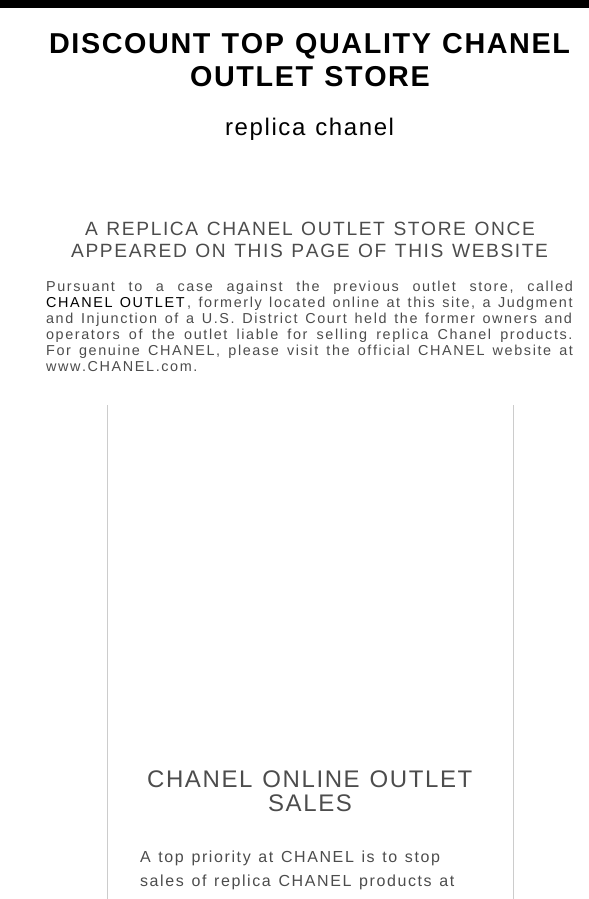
#include <cairo/cairo.h>
#include <math.h>
#include <stddef.h>


static void draw_spaced(cairo_t *cr, double x, double y, const char *s, double letter, double word) {
  cairo_move_to(cr, x, y);
  while (*s) {
    char ch[5] = {0};
    int n = 0;
    do ch[n++] = *s++; while ((*s & 0xC0) == 0x80);
    cairo_show_text(cr, ch);
    cairo_rel_move_to(cr, letter + word * (*ch == ' '), 0);
  }
}

static void draw(cairo_t *cr) {
  cairo_set_source_rgb(cr, 1, 1, 1);
  cairo_paint(cr);
  cairo_set_source_rgb(cr, 0, 0, 0);
  cairo_rectangle(cr, 0, 0, 589, 8);
  cairo_fill(cr);
  cairo_set_source_rgb(cr, 204 / 255.0, 204 / 255.0, 204 / 255.0);
  cairo_rectangle(cr, 513, 405, 1, 494);
  cairo_fill(cr);
  cairo_rectangle(cr, 107, 405, 1, 494);
  cairo_fill(cr);
  cairo_select_font_face(cr, "Liberation Sans", CAIRO_FONT_SLANT_NORMAL, CAIRO_FONT_WEIGHT_BOLD);
  cairo_set_font_size(cr, 28.75);
  cairo_set_source_rgb(cr, 0, 0, 0);
  draw_spaced(cr, 49, 53, "DISCOUNT TOP QUALITY CHANEL", 1.6, 0);
  draw_spaced(cr, 190, 86, "OUTLET STORE", 1.6, 0);
  cairo_select_font_face(cr, "Liberation Sans", CAIRO_FONT_SLANT_NORMAL, CAIRO_FONT_WEIGHT_NORMAL);
  cairo_set_font_size(cr, 24);
  draw_spaced(cr, 225, 135, "replica chanel", 1.6, 0);
  cairo_set_font_size(cr, 19.2);
  cairo_set_source_rgb(cr, 76 / 255.0, 76 / 255.0, 76 / 255.0);
  draw_spaced(cr, 85, 235, "A REPLICA CHANEL OUTLET STORE ONCE", 1.6, 0);
  draw_spaced(cr, 71, 257, "APPEARED ON THIS PAGE OF THIS WEBSITE", 1.6, 0);
  cairo_set_font_size(cr, 14.4);
  draw_spaced(cr, 46, 291, "Pursuant to a case against the previous outlet store, called", 1.6, 6.5);
  cairo_set_source_rgb(cr, 0, 0, 0);
  draw_spaced(cr, 46, 307, "CHANEL OUTLET", 1.6, 0);
  cairo_set_source_rgb(cr, 76 / 255.0, 76 / 255.0, 76 / 255.0);
  draw_spaced(cr, 187, 307, ", formerly located online at this site, a Judgment", 1.6, 0.25);
  draw_spaced(cr, 46, 323, "and Injunction of a U.S. District Court held the former owners and", 1.6, 0.5);
  draw_spaced(cr, 46, 339, "operators of the outlet liable for selling replica Chanel products.", 1.6, 2);
  draw_spaced(cr, 46, 355, "For genuine CHANEL, please visit the official CHANEL website at", 1.6, 1);
  draw_spaced(cr, 46, 371, "www.CHANEL.com.", 1.6, 0);
  cairo_set_font_size(cr, 24);
  draw_spaced(cr, 147, 787, "CHANEL ONLINE OUTLET", 1.6, 0);
  draw_spaced(cr, 268, 811, "SALES", 1.6, 0);
  cairo_set_font_size(cr, 16);
  draw_spaced(cr, 140, 862, "A top priority at CHANEL is to stop", 1.6, 0);
  draw_spaced(cr, 140, 886, "sales of replica CHANEL products at", 1.6, 0);
}

int main(void) {
  cairo_surface_t *surface = cairo_image_surface_create(CAIRO_FORMAT_RGB24, 589, 899);
  cairo_t *cr = cairo_create(surface);
  cairo_font_options_t *options = cairo_font_options_create();
  cairo_font_options_set_hint_metrics(options, CAIRO_HINT_METRICS_OFF);
  cairo_font_options_set_hint_style(options, CAIRO_HINT_STYLE_NONE);
  cairo_set_font_options(cr, options);
  cairo_set_miter_limit(cr, 4);
  draw(cr);
  cairo_surface_write_to_png(surface, "out.png");
  cairo_font_options_destroy(options);
  cairo_destroy(cr);
  cairo_surface_destroy(surface);
  return 0;
}
